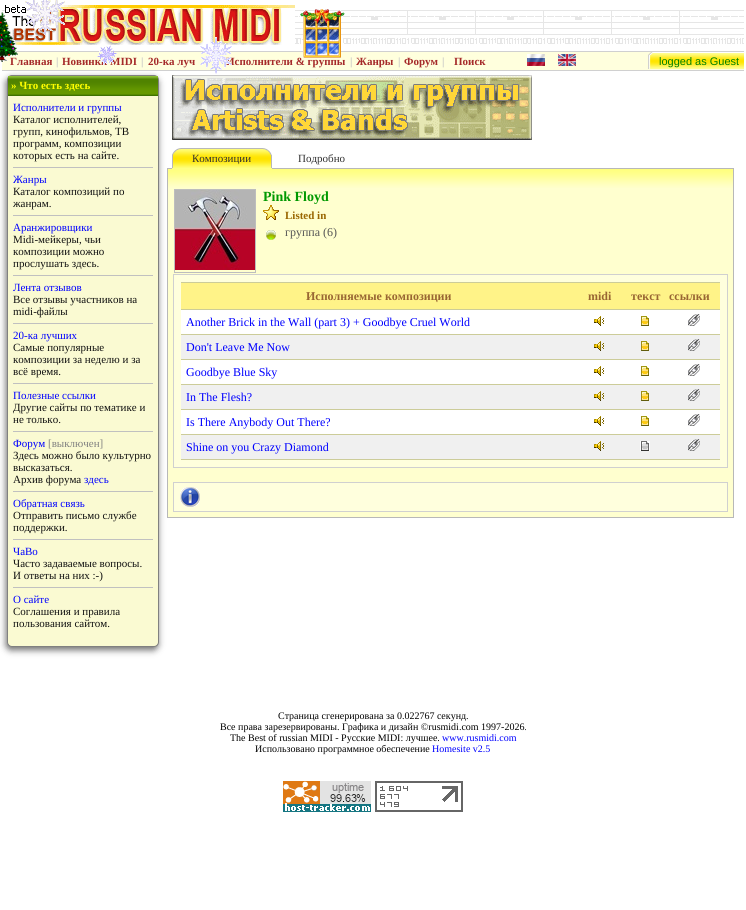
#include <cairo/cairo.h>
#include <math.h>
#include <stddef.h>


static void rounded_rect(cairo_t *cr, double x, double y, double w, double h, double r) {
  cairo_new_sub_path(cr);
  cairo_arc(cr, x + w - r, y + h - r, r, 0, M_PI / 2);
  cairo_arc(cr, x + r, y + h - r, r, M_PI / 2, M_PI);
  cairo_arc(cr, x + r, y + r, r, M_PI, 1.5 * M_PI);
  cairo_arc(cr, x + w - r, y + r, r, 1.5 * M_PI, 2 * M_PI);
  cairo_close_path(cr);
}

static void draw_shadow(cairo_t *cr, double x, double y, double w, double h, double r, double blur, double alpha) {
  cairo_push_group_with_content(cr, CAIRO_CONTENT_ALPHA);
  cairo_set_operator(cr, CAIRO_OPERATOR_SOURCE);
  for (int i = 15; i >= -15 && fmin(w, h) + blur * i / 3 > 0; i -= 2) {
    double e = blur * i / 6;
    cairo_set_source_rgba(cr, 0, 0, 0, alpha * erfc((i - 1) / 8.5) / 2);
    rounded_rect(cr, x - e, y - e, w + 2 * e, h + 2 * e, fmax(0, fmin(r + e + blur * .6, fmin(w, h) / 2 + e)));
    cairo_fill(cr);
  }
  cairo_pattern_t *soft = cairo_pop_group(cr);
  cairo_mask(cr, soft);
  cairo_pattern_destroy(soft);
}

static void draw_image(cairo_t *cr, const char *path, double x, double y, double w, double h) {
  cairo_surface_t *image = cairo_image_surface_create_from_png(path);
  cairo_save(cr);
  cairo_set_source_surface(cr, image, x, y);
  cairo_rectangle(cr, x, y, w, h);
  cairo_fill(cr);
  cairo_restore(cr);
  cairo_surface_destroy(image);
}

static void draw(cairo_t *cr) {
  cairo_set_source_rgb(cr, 1, 1, 1);
  cairo_paint(cr);
  draw_image(cr, "images/2.png", 2, 10, 742, 34);
  draw_image(cr, "images/3.png", 5, 5, 290, 40);
  draw_image(cr, "images/1.png", 25, 0, 40, 36);
  cairo_set_source_rgb(cr, 1, 1, 221 / 255.0);
  cairo_rectangle(cr, 2, 52, 742, 18);
  cairo_fill(cr);
  cairo_set_source_rgb(cr, 208 / 255.0, 208 / 255.0, 208 / 255.0);
  cairo_rectangle(cr, 16, 51, 728, 1);
  cairo_fill(cr);
  cairo_rectangle(cr, 2, 70, 742, 1);
  cairo_fill(cr);
  draw_image(cr, "images/8.png", 527, 54, 18, 12);
  draw_image(cr, "images/9.png", 558, 54, 18, 12);
  draw_image(cr, "images/10.png", 648, 52, 6, 17);
  draw_image(cr, "images/11.png", 654, 52, 90, 17);
  cairo_set_source_rgb(cr, 184 / 255.0, 184 / 255.0, 184 / 255.0);
  cairo_rectangle(cr, 167, 168, 5, 1);
  cairo_fill(cr);
  draw_image(cr, "images/15.png", 168, 169, 565, 19);
  cairo_rectangle(cr, 167, 169, 1, 19);
  cairo_fill(cr);
  cairo_set_source_rgb(cr, 1, 1, 207 / 255.0);
  cairo_rectangle(cr, 168, 188, 565, 329);
  cairo_fill(cr);
  cairo_set_source_rgb(cr, 184 / 255.0, 184 / 255.0, 184 / 255.0);
  cairo_rectangle(cr, 733, 169, 1, 349);
  cairo_fill(cr);
  cairo_rectangle(cr, 167, 517, 567, 1);
  cairo_fill(cr);
  cairo_rectangle(cr, 167, 188, 1, 330);
  cairo_fill(cr);
  cairo_set_source_rgb(cr, 108 / 255.0, 108 / 255.0, 108 / 255.0);
  draw_shadow(cr, 6, 78, 152, 572, 5, 3.5, 1);
  cairo_set_source_rgb(cr, 250 / 255.0, 250 / 255.0, 210 / 255.0);
  rounded_rect(cr, 7.5, 75.5, 151, 571, 4.5);
  cairo_fill_preserve(cr);
  cairo_set_source_rgb(cr, 128 / 255.0, 128 / 255.0, 128 / 255.0);
  cairo_set_line_width(cr, 1);
  cairo_stroke(cr);
  draw_image(cr, "images/12.png", 8, 76, 150, 20);
  cairo_set_source_rgb(cr, 192 / 255.0, 192 / 255.0, 192 / 255.0);
  cairo_rectangle(cr, 13, 167, 140, 1);
  cairo_fill(cr);
  cairo_rectangle(cr, 13, 215, 140, 1);
  cairo_fill(cr);
  cairo_rectangle(cr, 13, 275, 140, 1);
  cairo_fill(cr);
  cairo_rectangle(cr, 13, 323, 140, 1);
  cairo_fill(cr);
  cairo_rectangle(cr, 13, 383, 140, 1);
  cairo_fill(cr);
  cairo_rectangle(cr, 13, 431, 140, 1);
  cairo_fill(cr);
  cairo_rectangle(cr, 13, 491, 140, 1);
  cairo_fill(cr);
  cairo_rectangle(cr, 13, 539, 140, 1);
  cairo_fill(cr);
  cairo_rectangle(cr, 13, 587, 140, 1);
  cairo_fill(cr);
  draw_image(cr, "images/13.png", 172, 75, 360, 65);
  draw_image(cr, "images/14.png", 172, 148, 100, 20);
  cairo_set_source_rgb(cr, 1, 1, 127 / 255.0);
  cairo_rectangle(cr, 172, 168, 100, 1);
  cairo_fill(cr);
  cairo_set_source_rgb(cr, 184 / 255.0, 184 / 255.0, 184 / 255.0);
  cairo_rectangle(cr, 272, 168, 462, 1);
  cairo_fill(cr);
  cairo_rectangle(cr, 174.5, 189.5, 81, 83);
  cairo_set_source_rgb(cr, 189 / 255.0, 189 / 255.0, 189 / 255.0);
  cairo_stroke(cr);
  draw_image(cr, "images/16.png", 175, 190, 80, 80);
  draw_image(cr, "images/17.png", 263, 205, 16, 15);
  draw_image(cr, "images/18.png", 266, 230, 10, 10);
  cairo_set_source_rgb(cr, 1, 1, 221 / 255.0);
  cairo_rectangle(cr, 173.5, 274.5, 554, 193);
  cairo_fill_preserve(cr);
  cairo_set_source_rgb(cr, 208 / 255.0, 208 / 255.0, 208 / 255.0);
  cairo_stroke(cr);
  cairo_set_source_rgb(cr, 1, 243 / 255.0, 136 / 255.0);
  cairo_rectangle(cr, 181, 283, 539, 26);
  cairo_fill(cr);
  cairo_set_source_rgb(cr, 204 / 255.0, 204 / 255.0, 153 / 255.0);
  cairo_rectangle(cr, 181, 282, 539, 1);
  cairo_fill(cr);
  cairo_rectangle(cr, 181, 309, 539, 1);
  cairo_fill(cr);
  cairo_set_source_rgb(cr, 1, 1, 1);
  cairo_rectangle(cr, 181, 310, 539, 24);
  cairo_fill(cr);
  cairo_set_source_rgb(cr, 204 / 255.0, 204 / 255.0, 153 / 255.0);
  cairo_rectangle(cr, 181, 334, 539, 1);
  cairo_fill(cr);
  draw_image(cr, "images/19.png", 594, 316, 10, 10);
  draw_image(cr, "images/20.png", 641, 316, 8, 10);
  draw_image(cr, "images/21.png", 688, 314, 12, 12);
  cairo_set_source_rgb(cr, 240 / 255.0, 240 / 255.0, 240 / 255.0);
  cairo_rectangle(cr, 181, 335, 539, 24);
  cairo_fill(cr);
  cairo_set_source_rgb(cr, 204 / 255.0, 204 / 255.0, 153 / 255.0);
  cairo_rectangle(cr, 181, 359, 539, 1);
  cairo_fill(cr);
  draw_image(cr, "images/22.png", 594, 341, 10, 10);
  draw_image(cr, "images/23.png", 641, 341, 8, 10);
  draw_image(cr, "images/24.png", 688, 339, 12, 12);
  cairo_set_source_rgb(cr, 1, 1, 1);
  cairo_rectangle(cr, 181, 360, 539, 24);
  cairo_fill(cr);
  cairo_set_source_rgb(cr, 204 / 255.0, 204 / 255.0, 153 / 255.0);
  cairo_rectangle(cr, 181, 384, 539, 1);
  cairo_fill(cr);
  draw_image(cr, "images/19.png", 594, 366, 10, 10);
  draw_image(cr, "images/20.png", 641, 366, 8, 10);
  draw_image(cr, "images/21.png", 688, 364, 12, 12);
  cairo_set_source_rgb(cr, 240 / 255.0, 240 / 255.0, 240 / 255.0);
  cairo_rectangle(cr, 181, 385, 539, 24);
  cairo_fill(cr);
  cairo_set_source_rgb(cr, 204 / 255.0, 204 / 255.0, 153 / 255.0);
  cairo_rectangle(cr, 181, 409, 539, 1);
  cairo_fill(cr);
  draw_image(cr, "images/22.png", 594, 391, 10, 10);
  draw_image(cr, "images/23.png", 641, 391, 8, 10);
  draw_image(cr, "images/24.png", 688, 389, 12, 12);
  cairo_set_source_rgb(cr, 1, 1, 1);
  cairo_rectangle(cr, 181, 410, 539, 24);
  cairo_fill(cr);
  cairo_set_source_rgb(cr, 204 / 255.0, 204 / 255.0, 153 / 255.0);
  cairo_rectangle(cr, 181, 434, 539, 1);
  cairo_fill(cr);
  draw_image(cr, "images/19.png", 594, 416, 10, 10);
  draw_image(cr, "images/20.png", 641, 416, 8, 10);
  draw_image(cr, "images/21.png", 688, 414, 12, 12);
  cairo_set_source_rgb(cr, 240 / 255.0, 240 / 255.0, 240 / 255.0);
  cairo_rectangle(cr, 181, 435, 539, 24);
  cairo_fill(cr);
  cairo_set_source_rgb(cr, 204 / 255.0, 204 / 255.0, 153 / 255.0);
  cairo_rectangle(cr, 181, 459, 539, 1);
  cairo_fill(cr);
  draw_image(cr, "images/22.png", 594, 441, 10, 10);
  draw_image(cr, "images/25.png", 640, 441, 10, 10);
  draw_image(cr, "images/24.png", 688, 439, 12, 12);
  cairo_set_source_rgb(cr, 1, 1, 221 / 255.0);
  cairo_rectangle(cr, 173.5, 482.5, 554, 29);
  cairo_fill_preserve(cr);
  cairo_set_source_rgb(cr, 208 / 255.0, 208 / 255.0, 208 / 255.0);
  cairo_stroke(cr);
  draw_image(cr, "images/26.png", 180, 487, 20, 20);
  draw_image(cr, "images/27.png", 283, 781, 88, 31);
  draw_image(cr, "images/28.png", 375, 781, 88, 31);
  cairo_select_font_face(cr, "Liberation Serif", CAIRO_FONT_SLANT_NORMAL, CAIRO_FONT_WEIGHT_BOLD);
  cairo_set_font_size(cr, 11);
  cairo_set_source_rgb(cr, 165 / 255.0, 42 / 255.0, 42 / 255.0);
  cairo_move_to(cr, 10, 65);
  cairo_show_text(cr, "Главная");
  draw_image(cr, "images/4.png", 0, 12, 18, 50);
  cairo_set_source_rgb(cr, 198 / 255.0, 198 / 255.0, 198 / 255.0);
  cairo_move_to(cr, 56, 65);
  cairo_show_text(cr, "|");
  cairo_set_source_rgb(cr, 165 / 255.0, 42 / 255.0, 42 / 255.0);
  cairo_move_to(cr, 62, 65);
  cairo_show_text(cr, "Новинки MIDI");
  draw_image(cr, "images/5.png", 97, 45, 20, 20);
  cairo_set_source_rgb(cr, 198 / 255.0, 198 / 255.0, 198 / 255.0);
  cairo_move_to(cr, 141, 65);
  cairo_show_text(cr, "|");
  cairo_set_source_rgb(cr, 165 / 255.0, 42 / 255.0, 42 / 255.0);
  cairo_move_to(cr, 148, 65);
  cairo_show_text(cr, "20-ка луч");
  cairo_move_to(cr, 226, 65);
  cairo_show_text(cr, "Исполнители & группы");
  draw_image(cr, "images/6.png", 200, 37, 32, 37);
  draw_image(cr, "images/7.png", 300, 9, 45, 49);
  cairo_set_source_rgb(cr, 198 / 255.0, 198 / 255.0, 198 / 255.0);
  cairo_move_to(cr, 350, 65);
  cairo_show_text(cr, "|");
  cairo_set_source_rgb(cr, 165 / 255.0, 42 / 255.0, 42 / 255.0);
  cairo_move_to(cr, 356, 65);
  cairo_show_text(cr, "Жанры");
  cairo_set_source_rgb(cr, 198 / 255.0, 198 / 255.0, 198 / 255.0);
  cairo_move_to(cr, 398, 65);
  cairo_show_text(cr, "|");
  cairo_set_source_rgb(cr, 165 / 255.0, 42 / 255.0, 42 / 255.0);
  cairo_move_to(cr, 404, 65);
  cairo_show_text(cr, "Форум");
  cairo_set_source_rgb(cr, 198 / 255.0, 198 / 255.0, 198 / 255.0);
  cairo_move_to(cr, 442, 65);
  cairo_show_text(cr, "|");
  cairo_set_source_rgb(cr, 165 / 255.0, 42 / 255.0, 42 / 255.0);
  cairo_move_to(cr, 454, 65);
  cairo_show_text(cr, "Поиск");
  cairo_select_font_face(cr, "Liberation Sans", CAIRO_FONT_SLANT_NORMAL, CAIRO_FONT_WEIGHT_NORMAL);
  cairo_set_source_rgb(cr, 0, 128 / 255.0, 0);
  cairo_move_to(cr, 659, 65);
  cairo_show_text(cr, "logged as Guest");
  cairo_select_font_face(cr, "Liberation Serif", CAIRO_FONT_SLANT_NORMAL, CAIRO_FONT_WEIGHT_BOLD);
  cairo_set_source_rgb(cr, 1, 1, 0);
  cairo_move_to(cr, 11, 89);
  cairo_show_text(cr, "» Что есть здесь");
  cairo_select_font_face(cr, "Liberation Serif", CAIRO_FONT_SLANT_NORMAL, CAIRO_FONT_WEIGHT_NORMAL);
  cairo_set_source_rgb(cr, 0, 0, 1);
  cairo_move_to(cr, 13, 111);
  cairo_show_text(cr, "Исполнители и группы");
  cairo_set_source_rgb(cr, 16 / 255.0, 16 / 255.0, 16 / 255.0);
  cairo_move_to(cr, 13, 123);
  cairo_show_text(cr, "Каталог исполнителей,");
  cairo_move_to(cr, 13, 135);
  cairo_show_text(cr, "групп, кинофильмов, ТВ");
  cairo_move_to(cr, 13, 147);
  cairo_show_text(cr, "программ, композиции");
  cairo_move_to(cr, 13, 159);
  cairo_show_text(cr, "которых есть на сайте.");
  cairo_set_source_rgb(cr, 0, 0, 1);
  cairo_move_to(cr, 13, 183);
  cairo_show_text(cr, "Жанры");
  cairo_set_source_rgb(cr, 16 / 255.0, 16 / 255.0, 16 / 255.0);
  cairo_move_to(cr, 13, 195);
  cairo_show_text(cr, "Каталог композиций по");
  cairo_move_to(cr, 13, 207);
  cairo_show_text(cr, "жанрам.");
  cairo_set_source_rgb(cr, 0, 0, 1);
  cairo_move_to(cr, 13, 231);
  cairo_show_text(cr, "Аранжировщики");
  cairo_set_source_rgb(cr, 16 / 255.0, 16 / 255.0, 16 / 255.0);
  cairo_move_to(cr, 13, 243);
  cairo_show_text(cr, "Midi-мейкеры, чьи");
  cairo_move_to(cr, 13, 255);
  cairo_show_text(cr, "композиции можно");
  cairo_move_to(cr, 13, 267);
  cairo_show_text(cr, "прослушать здесь.");
  cairo_set_source_rgb(cr, 0, 0, 1);
  cairo_move_to(cr, 13, 291);
  cairo_show_text(cr, "Лента отзывов");
  cairo_set_source_rgb(cr, 16 / 255.0, 16 / 255.0, 16 / 255.0);
  cairo_move_to(cr, 13, 303);
  cairo_show_text(cr, "Все отзывы участников на");
  cairo_move_to(cr, 13, 315);
  cairo_show_text(cr, "midi-файлы");
  cairo_set_source_rgb(cr, 0, 0, 1);
  cairo_move_to(cr, 13, 339);
  cairo_show_text(cr, "20-ка лучших");
  cairo_set_source_rgb(cr, 16 / 255.0, 16 / 255.0, 16 / 255.0);
  cairo_move_to(cr, 13, 351);
  cairo_show_text(cr, "Самые популярные");
  cairo_move_to(cr, 13, 363);
  cairo_show_text(cr, "композиции за неделю и за");
  cairo_move_to(cr, 13, 375);
  cairo_show_text(cr, "всё время.");
  cairo_set_source_rgb(cr, 0, 0, 1);
  cairo_move_to(cr, 13, 399);
  cairo_show_text(cr, "Полезные ссылки");
  cairo_set_source_rgb(cr, 16 / 255.0, 16 / 255.0, 16 / 255.0);
  cairo_move_to(cr, 13, 411);
  cairo_show_text(cr, "Другие сайты по тематике и");
  cairo_move_to(cr, 13, 423);
  cairo_show_text(cr, "не только.");
  cairo_set_source_rgb(cr, 0, 0, 1);
  cairo_move_to(cr, 13, 447);
  cairo_show_text(cr, "Форум");
  cairo_set_source_rgb(cr, 128 / 255.0, 128 / 255.0, 128 / 255.0);
  cairo_move_to(cr, 48, 447);
  cairo_show_text(cr, "[выключен]");
  cairo_set_source_rgb(cr, 16 / 255.0, 16 / 255.0, 16 / 255.0);
  cairo_move_to(cr, 13, 459);
  cairo_show_text(cr, "Здесь можно было культурно");
  cairo_move_to(cr, 13, 471);
  cairo_show_text(cr, "высказаться.");
  cairo_move_to(cr, 13, 483);
  cairo_show_text(cr, "Архив форума");
  cairo_set_source_rgb(cr, 0, 0, 1);
  cairo_move_to(cr, 84, 483);
  cairo_show_text(cr, "здесь");
  cairo_move_to(cr, 13, 507);
  cairo_show_text(cr, "Обратная связь");
  cairo_set_source_rgb(cr, 16 / 255.0, 16 / 255.0, 16 / 255.0);
  cairo_move_to(cr, 13, 519);
  cairo_show_text(cr, "Отправить письмо службе");
  cairo_move_to(cr, 13, 531);
  cairo_show_text(cr, "поддержки.");
  cairo_set_source_rgb(cr, 0, 0, 1);
  cairo_move_to(cr, 13, 555);
  cairo_show_text(cr, "ЧаВо");
  cairo_set_source_rgb(cr, 16 / 255.0, 16 / 255.0, 16 / 255.0);
  cairo_move_to(cr, 13, 567);
  cairo_show_text(cr, "Часто задаваемые вопросы.");
  cairo_move_to(cr, 13, 579);
  cairo_show_text(cr, "И ответы на них :-)");
  cairo_set_source_rgb(cr, 0, 0, 1);
  cairo_move_to(cr, 13, 603);
  cairo_show_text(cr, "О сайте");
  cairo_set_source_rgb(cr, 16 / 255.0, 16 / 255.0, 16 / 255.0);
  cairo_move_to(cr, 13, 615);
  cairo_show_text(cr, "Соглашения и правила");
  cairo_move_to(cr, 13, 627);
  cairo_show_text(cr, "пользования сайтом.");
  cairo_set_source_rgb(cr, 48 / 255.0, 48 / 255.0, 48 / 255.0);
  cairo_move_to(cr, 192, 162);
  cairo_show_text(cr, "Композиции");
  cairo_move_to(cr, 298, 162);
  cairo_show_text(cr, "Подробно");
  cairo_select_font_face(cr, "Liberation Serif", CAIRO_FONT_SLANT_NORMAL, CAIRO_FONT_WEIGHT_BOLD);
  cairo_set_font_size(cr, 14);
  cairo_set_source_rgb(cr, 0, 153 / 255.0, 0);
  cairo_move_to(cr, 263, 201);
  cairo_show_text(cr, "Pink Floyd");
  cairo_set_font_size(cr, 11);
  cairo_set_source_rgb(cr, 153 / 255.0, 102 / 255.0, 0);
  cairo_move_to(cr, 285, 219);
  cairo_show_text(cr, "Listed in");
  cairo_select_font_face(cr, "Liberation Serif", CAIRO_FONT_SLANT_NORMAL, CAIRO_FONT_WEIGHT_NORMAL);
  cairo_set_font_size(cr, 12);
  cairo_set_source_rgb(cr, 85 / 255.0, 85 / 255.0, 85 / 255.0);
  cairo_move_to(cr, 285, 236);
  cairo_show_text(cr, "группа (6)");
  cairo_select_font_face(cr, "Liberation Serif", CAIRO_FONT_SLANT_NORMAL, CAIRO_FONT_WEIGHT_BOLD);
  cairo_set_source_rgb(cr, 153 / 255.0, 102 / 255.0, 51 / 255.0);
  cairo_move_to(cr, 306, 300);
  cairo_show_text(cr, "Исполняемые композиции");
  cairo_move_to(cr, 588, 300);
  cairo_show_text(cr, "midi");
  cairo_move_to(cr, 631, 300);
  cairo_show_text(cr, "текст");
  cairo_move_to(cr, 669, 300);
  cairo_show_text(cr, "ссылки");
  cairo_select_font_face(cr, "Liberation Serif", CAIRO_FONT_SLANT_NORMAL, CAIRO_FONT_WEIGHT_NORMAL);
  cairo_set_source_rgb(cr, 0, 0, 1);
  cairo_move_to(cr, 186, 326);
  cairo_show_text(cr, "Another Brick in the Wall (part 3) + Goodbye Cruel World");
  cairo_move_to(cr, 186, 351);
  cairo_show_text(cr, "Don't Leave Me Now");
  cairo_move_to(cr, 186, 376);
  cairo_show_text(cr, "Goodbye Blue Sky");
  cairo_move_to(cr, 186, 401);
  cairo_show_text(cr, "In The Flesh?");
  cairo_move_to(cr, 186, 426);
  cairo_show_text(cr, "Is There Anybody Out There?");
  cairo_move_to(cr, 186, 451);
  cairo_show_text(cr, "Shine on you Crazy Diamond");
  cairo_set_font_size(cr, 10);
  cairo_set_source_rgb(cr, 0, 0, 0);
  cairo_move_to(cr, 278, 719);
  cairo_show_text(cr, "Страница сгенерирована за 0.022767 секунд.");
  cairo_move_to(cr, 220, 730);
  cairo_show_text(cr, "Все права зарезервированы. Графика и дизайн ©rusmidi.com 1997-2026.");
  cairo_move_to(cr, 230, 741);
  cairo_show_text(cr, "The Best of russian MIDI - Русские MIDI: лучшее.");
  cairo_set_source_rgb(cr, 0, 0, 1);
  cairo_move_to(cr, 442, 741);
  cairo_show_text(cr, "www.rusmidi.com");
  cairo_set_source_rgb(cr, 0, 0, 0);
  cairo_move_to(cr, 255, 752);
  cairo_show_text(cr, "Использовано программное обеспечение");
  cairo_set_source_rgb(cr, 0, 0, 1);
  cairo_move_to(cr, 432, 752);
  cairo_show_text(cr, "Homesite v2.5");
}

int main(void) {
  cairo_surface_t *surface = cairo_image_surface_create(CAIRO_FORMAT_RGB24, 746, 910);
  cairo_t *cr = cairo_create(surface);
  cairo_font_options_t *options = cairo_font_options_create();
  cairo_font_options_set_hint_metrics(options, CAIRO_HINT_METRICS_OFF);
  cairo_font_options_set_hint_style(options, CAIRO_HINT_STYLE_NONE);
  cairo_set_font_options(cr, options);
  cairo_set_miter_limit(cr, 4);
  draw(cr);
  cairo_surface_write_to_png(surface, "out.png");
  cairo_font_options_destroy(options);
  cairo_destroy(cr);
  cairo_surface_destroy(surface);
  return 0;
}
